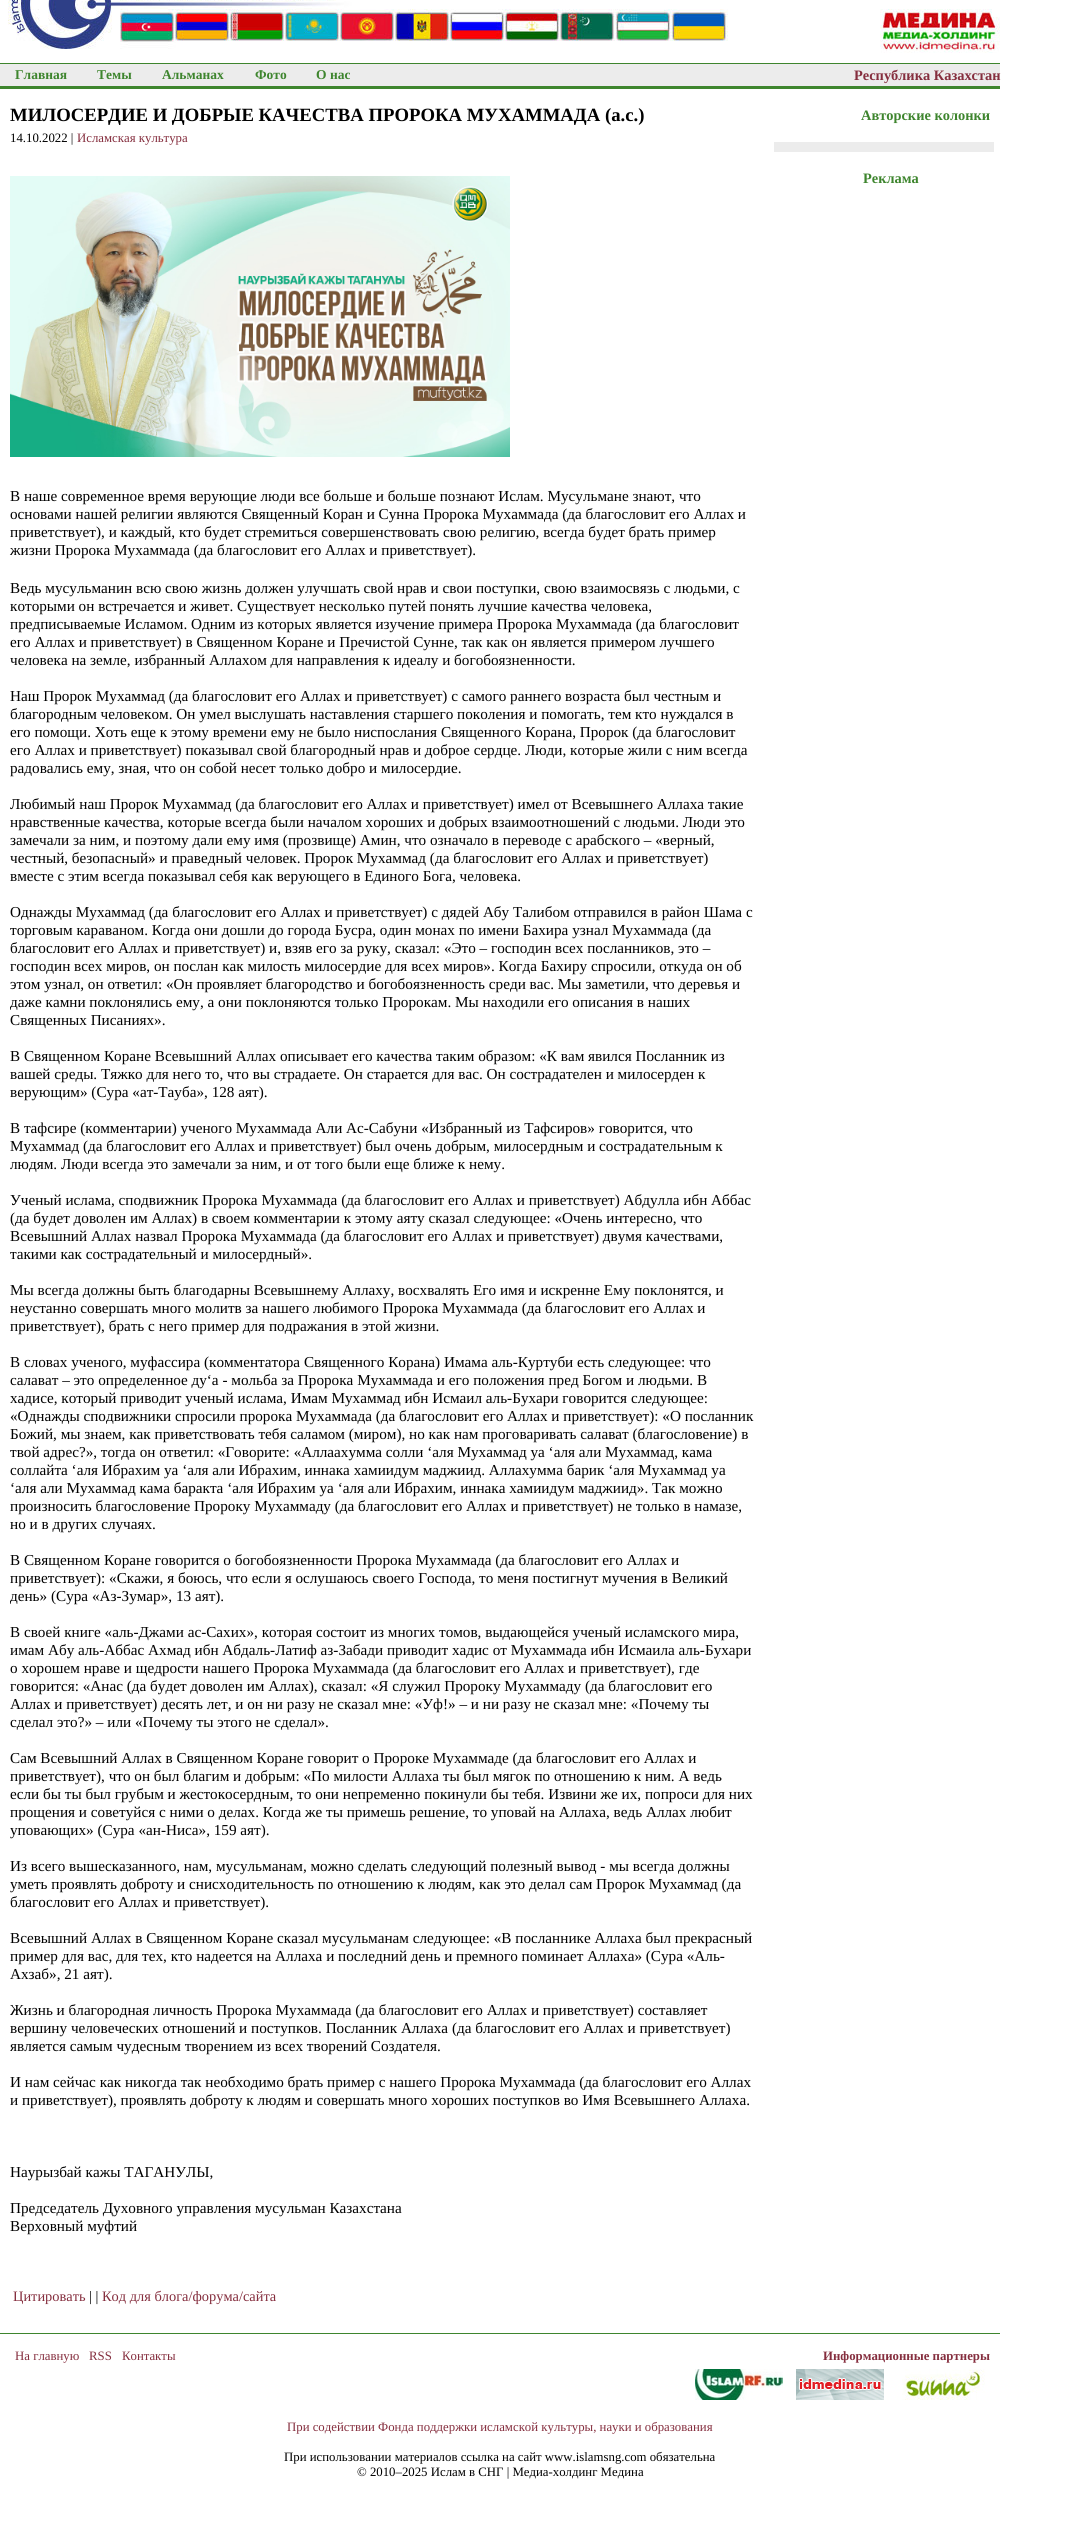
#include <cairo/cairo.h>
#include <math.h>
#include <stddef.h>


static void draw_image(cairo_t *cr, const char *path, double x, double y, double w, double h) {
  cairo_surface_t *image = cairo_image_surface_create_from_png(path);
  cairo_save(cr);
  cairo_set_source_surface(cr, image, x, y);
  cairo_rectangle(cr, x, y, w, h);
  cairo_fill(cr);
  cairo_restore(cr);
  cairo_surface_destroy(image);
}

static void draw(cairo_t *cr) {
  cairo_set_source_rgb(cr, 1, 1, 1);
  cairo_paint(cr);
  draw_image(cr, "images/1.png", 8, 0, 992, 53);
  cairo_set_source_rgb(cr, 236 / 255.0, 236 / 255.0, 236 / 255.0);
  cairo_rectangle(cr, 0, 64, 1000, 22);
  cairo_fill(cr);
  cairo_set_source_rgb(cr, 62 / 255.0, 133 / 255.0, 46 / 255.0);
  cairo_rectangle(cr, 0, 63, 1000, 1);
  cairo_fill(cr);
  cairo_rectangle(cr, 0, 86, 1000, 3);
  cairo_fill(cr);
  draw_image(cr, "images/2.png", 10, 176, 500, 281);
  cairo_set_source_rgb(cr, 236 / 255.0, 236 / 255.0, 236 / 255.0);
  cairo_rectangle(cr, 774, 142, 220, 10);
  cairo_fill(cr);
  cairo_set_source_rgb(cr, 62 / 255.0, 133 / 255.0, 46 / 255.0);
  cairo_rectangle(cr, 0, 2333, 1000, 1);
  cairo_fill(cr);
  draw_image(cr, "images/3.png", 695, 2369, 88, 31);
  draw_image(cr, "images/4.png", 796, 2369, 88, 31);
  draw_image(cr, "images/5.png", 902, 2369, 83, 31);
  cairo_select_font_face(cr, "Liberation Serif", CAIRO_FONT_SLANT_NORMAL, CAIRO_FONT_WEIGHT_BOLD);
  cairo_set_font_size(cr, 13.5);
  cairo_move_to(cr, 15, 79);
  cairo_show_text(cr, "Главная");
  cairo_move_to(cr, 97, 79);
  cairo_show_text(cr, "Темы");
  cairo_move_to(cr, 162, 79);
  cairo_show_text(cr, "Альманах");
  cairo_move_to(cr, 255, 79);
  cairo_show_text(cr, "Фото");
  cairo_move_to(cr, 316, 79);
  cairo_show_text(cr, "О нас");
  cairo_set_font_size(cr, 14.4);
  cairo_set_source_rgb(cr, 133 / 255.0, 46 / 255.0, 62 / 255.0);
  cairo_move_to(cr, 854, 80);
  cairo_show_text(cr, "Республика Казахстан");
  cairo_set_font_size(cr, 18.7);
  cairo_set_source_rgb(cr, 0, 0, 0);
  cairo_move_to(cr, 10, 121);
  cairo_show_text(cr, "МИЛОСЕРДИЕ И ДОБРЫЕ КАЧЕСТВА ПРОРОКА МУХАММАДА (а.с.)");
  cairo_select_font_face(cr, "Liberation Serif", CAIRO_FONT_SLANT_NORMAL, CAIRO_FONT_WEIGHT_NORMAL);
  cairo_set_font_size(cr, 12.8);
  cairo_move_to(cr, 10, 142);
  cairo_show_text(cr, "14.10.2022 |");
  cairo_set_source_rgb(cr, 133 / 255.0, 46 / 255.0, 62 / 255.0);
  cairo_move_to(cr, 77, 142);
  cairo_show_text(cr, "Исламская культура");
  cairo_set_font_size(cr, 15.2);
  cairo_set_source_rgb(cr, 0, 0, 0);
  cairo_move_to(cr, 10, 501);
  cairo_show_text(cr, "В наше современное время верующие люди все больше и больше познают Ислам. Мусульмане знают, что");
  cairo_move_to(cr, 10, 519);
  cairo_show_text(cr, "основами нашей религии являются Священный Коран и Сунна Пророка Мухаммада (да благословит его Аллах и");
  cairo_move_to(cr, 10, 537);
  cairo_show_text(cr, "приветствует), и каждый, кто будет стремиться совершенствовать свою религию, всегда будет брать пример");
  cairo_move_to(cr, 10, 555);
  cairo_show_text(cr, "жизни Пророка Мухаммада (да благословит его Аллах и приветствует).");
  cairo_move_to(cr, 10, 593);
  cairo_show_text(cr, "Ведь мусульманин всю свою жизнь должен улучшать свой нрав и свои поступки, свою взаимосвязь с людьми, с");
  cairo_move_to(cr, 10, 611);
  cairo_show_text(cr, "которыми он встречается и живет. Существует несколько путей понять лучшие качества человека,");
  cairo_move_to(cr, 10, 629);
  cairo_show_text(cr, "предписываемые Исламом. Одним из которых является изучение примера Пророка Мухаммада (да благословит");
  cairo_move_to(cr, 10, 647);
  cairo_show_text(cr, "его Аллах и приветствует) в Священном Коране и Пречистой Сунне, так как он является примером лучшего");
  cairo_move_to(cr, 10, 665);
  cairo_show_text(cr, "человека на земле, избранный Аллахом для направления к идеалу и богобоязненности.");
  cairo_move_to(cr, 10, 701);
  cairo_show_text(cr, "Наш Пророк Мухаммад (да благословит его Аллах и приветствует) с самого раннего возраста был честным и");
  cairo_move_to(cr, 10, 719);
  cairo_show_text(cr, "благородным человеком. Он умел выслушать наставления старшего поколения и помогать, тем кто нуждался в");
  cairo_move_to(cr, 10, 737);
  cairo_show_text(cr, "его помощи. Хоть еще к этому времени ему не было ниспослания Священного Корана, Пророк (да благословит");
  cairo_move_to(cr, 10, 755);
  cairo_show_text(cr, "его Аллах и приветствует) показывал свой благородный нрав и доброе сердце. Люди, которые жили с ним всегда");
  cairo_move_to(cr, 10, 773);
  cairo_show_text(cr, "радовались ему, зная, что он собой несет только добро и милосердие.");
  cairo_move_to(cr, 10, 809);
  cairo_show_text(cr, "Любимый наш Пророк Мухаммад (да благословит его Аллах и приветствует) имел от Всевышнего Аллаха такие");
  cairo_move_to(cr, 10, 827);
  cairo_show_text(cr, "нравственные качества, которые всегда были началом хороших и добрых взаимоотношений с людьми. Люди это");
  cairo_move_to(cr, 10, 845);
  cairo_show_text(cr, "замечали за ним, и поэтому дали ему имя (прозвище) Амин, что означало в переводе с арабского – «верный,");
  cairo_move_to(cr, 10, 863);
  cairo_show_text(cr, "честный, безопасный» и праведный человек. Пророк Мухаммад (да благословит его Аллах и приветствует)");
  cairo_move_to(cr, 10, 881);
  cairo_show_text(cr, "вместе с этим всегда показывал себя как верующего в Единого Бога, человека.");
  cairo_move_to(cr, 10, 917);
  cairo_show_text(cr, "Однажды Мухаммад (да благословит его Аллах и приветствует) с дядей Абу Талибом отправился в район Шама с");
  cairo_move_to(cr, 10, 935);
  cairo_show_text(cr, "торговым караваном. Когда они дошли до города Бусра, один монах по имени Бахира узнал Мухаммада (да");
  cairo_move_to(cr, 10, 953);
  cairo_show_text(cr, "благословит его Аллах и приветствует) и, взяв его за руку, сказал: «Это – господин всех посланников, это –");
  cairo_move_to(cr, 10, 971);
  cairo_show_text(cr, "господин всех миров, он послан как милость милосердие для всех миров». Когда Бахиру спросили, откуда он об");
  cairo_move_to(cr, 10, 989);
  cairo_show_text(cr, "этом узнал, он ответил: «Он проявляет благородство и богобоязненность среди вас. Мы заметили, что деревья и");
  cairo_move_to(cr, 10, 1007);
  cairo_show_text(cr, "даже камни поклонялись ему, а они поклоняются только Пророкам. Мы находили его описания в наших");
  cairo_move_to(cr, 10, 1025);
  cairo_show_text(cr, "Священных Писаниях».");
  cairo_move_to(cr, 10, 1061);
  cairo_show_text(cr, "В Священном Коране Всевышний Аллах описывает его качества таким образом: «К вам явился Посланник из");
  cairo_move_to(cr, 10, 1079);
  cairo_show_text(cr, "вашей среды. Тяжко для него то, что вы страдаете. Он старается для вас. Он сострадателен и милосерден к");
  cairo_move_to(cr, 10, 1097);
  cairo_show_text(cr, "верующим» (Сура «ат-Тауба», 128 аят).");
  cairo_move_to(cr, 10, 1133);
  cairo_show_text(cr, "В тафсире (комментарии) ученого Мухаммада Али Ас-Сабуни «Избранный из Тафсиров» говорится, что");
  cairo_move_to(cr, 10, 1151);
  cairo_show_text(cr, "Мухаммад (да благословит его Аллах и приветствует) был очень добрым, милосердным и сострадательным к");
  cairo_move_to(cr, 10, 1169);
  cairo_show_text(cr, "людям. Люди всегда это замечали за ним, и от того были еще ближе к нему.");
  cairo_move_to(cr, 10, 1205);
  cairo_show_text(cr, "Ученый ислама, сподвижник Пророка Мухаммада (да благословит его Аллах и приветствует) Абдулла ибн Аббас");
  cairo_move_to(cr, 10, 1223);
  cairo_show_text(cr, "(да будет доволен им Аллах) в своем комментарии к этому аяту сказал следующее: «Очень интересно, что");
  cairo_move_to(cr, 10, 1241);
  cairo_show_text(cr, "Всевышний Аллах назвал Пророка Мухаммада (да благословит его Аллах и приветствует) двумя качествами,");
  cairo_move_to(cr, 10, 1259);
  cairo_show_text(cr, "такими как сострадательный и милосердный».");
  cairo_move_to(cr, 10, 1295);
  cairo_show_text(cr, "Мы всегда должны быть благодарны Всевышнему Аллаху, восхвалять Его имя и искренне Ему поклонятся, и");
  cairo_move_to(cr, 10, 1313);
  cairo_show_text(cr, "неустанно совершать много молитв за нашего любимого Пророка Мухаммада (да благословит его Аллах и");
  cairo_move_to(cr, 10, 1331);
  cairo_show_text(cr, "приветствует), брать с него пример для подражания в этой жизни.");
  cairo_move_to(cr, 10, 1367);
  cairo_show_text(cr, "В словах ученого, муфассира (комментатора Священного Корана) Имама аль-Куртуби есть следующее: что");
  cairo_move_to(cr, 10, 1385);
  cairo_show_text(cr, "салават – это определенное ду‘а - мольба за Пророка Мухаммада и его положения пред Богом и людьми. В");
  cairo_move_to(cr, 10, 1403);
  cairo_show_text(cr, "хадисе, который приводит ученый ислама, Имам Мухаммад ибн Исмаил аль-Бухари говорится следующее:");
  cairo_move_to(cr, 10, 1421);
  cairo_show_text(cr, "«Однажды сподвижники спросили пророка Мухаммада (да благословит его Аллах и приветствует): «О посланник");
  cairo_move_to(cr, 10, 1439);
  cairo_show_text(cr, "Божий, мы знаем, как приветствовать тебя саламом (миром), но как нам проговаривать салават (благословение) в");
  cairo_move_to(cr, 10, 1457);
  cairo_show_text(cr, "твой адрес?», тогда он ответил: «Говорите: «Аллаахумма солли ‘аля Мухаммад уа ‘аля али Мухаммад, кама");
  cairo_move_to(cr, 10, 1475);
  cairo_show_text(cr, "соллайта ‘аля Ибрахим уа ‘аля али Ибрахим, иннака хамиидум маджиид. Аллахумма барик ‘аля Мухаммад уа");
  cairo_move_to(cr, 10, 1493);
  cairo_show_text(cr, "‘аля али Мухаммад кама баракта ‘аля Ибрахим уа ‘аля али Ибрахим, иннака хамиидум маджиид». Так можно");
  cairo_move_to(cr, 10, 1511);
  cairo_show_text(cr, "произносить благословение Пророку Мухаммаду (да благословит его Аллах и приветствует) не только в намазе,");
  cairo_move_to(cr, 10, 1529);
  cairo_show_text(cr, "но и в других случаях.");
  cairo_move_to(cr, 10, 1565);
  cairo_show_text(cr, "В Священном Коране говорится о богобоязненности Пророка Мухаммада (да благословит его Аллах и");
  cairo_move_to(cr, 10, 1583);
  cairo_show_text(cr, "приветствует): «Скажи, я боюсь, что если я ослушаюсь своего Господа, то меня постигнут мучения в Великий");
  cairo_move_to(cr, 10, 1601);
  cairo_show_text(cr, "день» (Сура «Аз-Зумар», 13 аят).");
  cairo_move_to(cr, 10, 1637);
  cairo_show_text(cr, "В своей книге «аль-Джами ас-Сахих», которая состоит из многих томов, выдающейся ученый исламского мира,");
  cairo_move_to(cr, 10, 1655);
  cairo_show_text(cr, "имам Абу аль-Аббас Ахмад ибн Абдаль-Латиф аз-Забади приводит хадис от Мухаммада ибн Исмаила аль-Бухари");
  cairo_move_to(cr, 10, 1673);
  cairo_show_text(cr, "о хорошем нраве и щедрости нашего Пророка Мухаммада (да благословит его Аллах и приветствует), где");
  cairo_move_to(cr, 10, 1691);
  cairo_show_text(cr, "говорится: «Анас (да будет доволен им Аллах), сказал: «Я служил Пророку Мухаммаду (да благословит его");
  cairo_move_to(cr, 10, 1709);
  cairo_show_text(cr, "Аллах и приветствует) десять лет, и он ни разу не сказал мне: «Уф!» – и ни разу не сказал мне: «Почему ты");
  cairo_move_to(cr, 10, 1727);
  cairo_show_text(cr, "сделал это?» – или «Почему ты этого не сделал».");
  cairo_move_to(cr, 10, 1763);
  cairo_show_text(cr, "Сам Всевышний Аллах в Священном Коране говорит о Пророке Мухаммаде (да благословит его Аллах и");
  cairo_move_to(cr, 10, 1781);
  cairo_show_text(cr, "приветствует), что он был благим и добрым: «По милости Аллаха ты был мягок по отношению к ним. А ведь");
  cairo_move_to(cr, 10, 1799);
  cairo_show_text(cr, "если бы ты был грубым и жестокосердным, то они непременно покинули бы тебя. Извини же их, попроси для них");
  cairo_move_to(cr, 10, 1817);
  cairo_show_text(cr, "прощения и советуйся с ними о делах. Когда же ты примешь решение, то уповай на Аллаха, ведь Аллах любит");
  cairo_move_to(cr, 10, 1835);
  cairo_show_text(cr, "уповающих» (Сура «ан-Ниса», 159 аят).");
  cairo_move_to(cr, 10, 1871);
  cairo_show_text(cr, "Из всего вышесказанного, нам, мусульманам, можно сделать следующий полезный вывод - мы всегда должны");
  cairo_move_to(cr, 10, 1889);
  cairo_show_text(cr, "уметь проявлять доброту и снисходительность по отношению к людям, как это делал сам Пророк Мухаммад (да");
  cairo_move_to(cr, 10, 1907);
  cairo_show_text(cr, "благословит его Аллах и приветствует).");
  cairo_move_to(cr, 10, 1943);
  cairo_show_text(cr, "Всевышний Аллах в Священном Коране сказал мусульманам следующее: «В посланнике Аллаха был прекрасный");
  cairo_move_to(cr, 10, 1961);
  cairo_show_text(cr, "пример для вас, для тех, кто надеется на Аллаха и последний день и премного поминает Аллаха» (Сура «Аль-");
  cairo_move_to(cr, 10, 1979);
  cairo_show_text(cr, "Ахзаб», 21 аят).");
  cairo_move_to(cr, 10, 2015);
  cairo_show_text(cr, "Жизнь и благородная личность Пророка Мухаммада (да благословит его Аллах и приветствует) составляет");
  cairo_move_to(cr, 10, 2033);
  cairo_show_text(cr, "вершину человеческих отношений и поступков. Посланник Аллаха (да благословит его Аллах и приветствует)");
  cairo_move_to(cr, 10, 2051);
  cairo_show_text(cr, "является самым чудесным творением из всех творений Создателя.");
  cairo_move_to(cr, 10, 2087);
  cairo_show_text(cr, "И нам сейчас как никогда так необходимо брать пример с нашего Пророка Мухаммада (да благословит его Аллах");
  cairo_move_to(cr, 10, 2105);
  cairo_show_text(cr, "и приветствует), проявлять доброту к людям и совершать много хороших поступков во Имя Всевышнего Аллаха.");
  cairo_move_to(cr, 10, 2177);
  cairo_show_text(cr, "Наурызбай кажы ТАГАНУЛЫ,");
  cairo_move_to(cr, 10, 2213);
  cairo_show_text(cr, "Председатель Духовного управления мусульман Казахстана");
  cairo_move_to(cr, 10, 2231);
  cairo_show_text(cr, "Верховный муфтий");
  cairo_set_font_size(cr, 14.4);
  cairo_set_source_rgb(cr, 133 / 255.0, 46 / 255.0, 62 / 255.0);
  cairo_move_to(cr, 13, 2301);
  cairo_show_text(cr, "Цитировать");
  cairo_set_source_rgb(cr, 0, 0, 0);
  cairo_move_to(cr, 89, 2301);
  cairo_show_text(cr, "| |");
  cairo_set_source_rgb(cr, 133 / 255.0, 46 / 255.0, 62 / 255.0);
  cairo_move_to(cr, 102, 2301);
  cairo_show_text(cr, "Код для блога/форума/сайта");
  cairo_select_font_face(cr, "Liberation Serif", CAIRO_FONT_SLANT_NORMAL, CAIRO_FONT_WEIGHT_BOLD);
  cairo_set_source_rgb(cr, 62 / 255.0, 133 / 255.0, 46 / 255.0);
  cairo_move_to(cr, 861, 120);
  cairo_show_text(cr, "Авторские колонки");
  cairo_move_to(cr, 863, 183);
  cairo_show_text(cr, "Реклама");
  cairo_select_font_face(cr, "Liberation Serif", CAIRO_FONT_SLANT_NORMAL, CAIRO_FONT_WEIGHT_NORMAL);
  cairo_set_font_size(cr, 12.8);
  cairo_set_source_rgb(cr, 133 / 255.0, 46 / 255.0, 62 / 255.0);
  cairo_move_to(cr, 15, 2360);
  cairo_show_text(cr, "На главную");
  cairo_move_to(cr, 89, 2360);
  cairo_show_text(cr, "RSS");
  cairo_move_to(cr, 122, 2360);
  cairo_show_text(cr, "Контакты");
  cairo_select_font_face(cr, "Liberation Serif", CAIRO_FONT_SLANT_NORMAL, CAIRO_FONT_WEIGHT_BOLD);
  cairo_move_to(cr, 823, 2360);
  cairo_show_text(cr, "Информационные партнеры");
  cairo_select_font_face(cr, "Liberation Serif", CAIRO_FONT_SLANT_NORMAL, CAIRO_FONT_WEIGHT_NORMAL);
  cairo_move_to(cr, 287, 2431);
  cairo_show_text(cr, "При содействии Фонда поддержки исламской культуры, науки и образования");
  cairo_set_source_rgb(cr, 0, 0, 0);
  cairo_move_to(cr, 284, 2461);
  cairo_show_text(cr, "При использовании материалов ссылка на сайт www.islamsng.com обязательна");
  cairo_move_to(cr, 357, 2476);
  cairo_show_text(cr, "© 2010–2025 Ислам в СНГ | Медиа-холдинг Медина");
}

int main(void) {
  cairo_surface_t *surface = cairo_image_surface_create(CAIRO_FORMAT_RGB24, 1073, 2521);
  cairo_t *cr = cairo_create(surface);
  cairo_font_options_t *options = cairo_font_options_create();
  cairo_font_options_set_hint_metrics(options, CAIRO_HINT_METRICS_OFF);
  cairo_font_options_set_hint_style(options, CAIRO_HINT_STYLE_NONE);
  cairo_set_font_options(cr, options);
  cairo_set_miter_limit(cr, 4);
  draw(cr);
  cairo_surface_write_to_png(surface, "out.png");
  cairo_font_options_destroy(options);
  cairo_destroy(cr);
  cairo_surface_destroy(surface);
  return 0;
}
